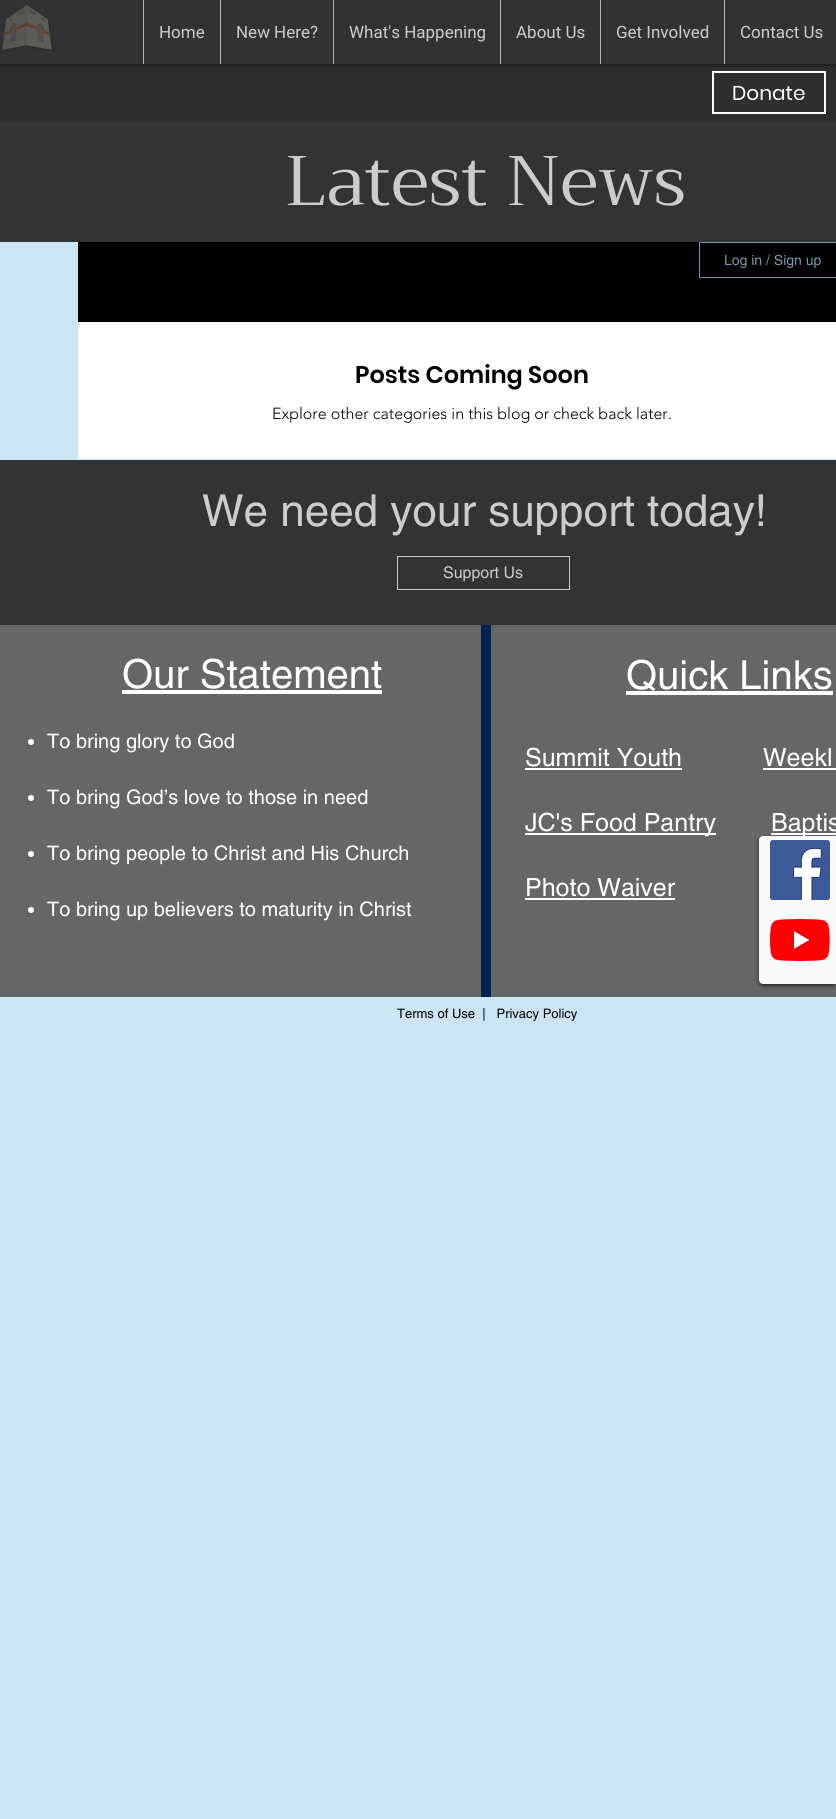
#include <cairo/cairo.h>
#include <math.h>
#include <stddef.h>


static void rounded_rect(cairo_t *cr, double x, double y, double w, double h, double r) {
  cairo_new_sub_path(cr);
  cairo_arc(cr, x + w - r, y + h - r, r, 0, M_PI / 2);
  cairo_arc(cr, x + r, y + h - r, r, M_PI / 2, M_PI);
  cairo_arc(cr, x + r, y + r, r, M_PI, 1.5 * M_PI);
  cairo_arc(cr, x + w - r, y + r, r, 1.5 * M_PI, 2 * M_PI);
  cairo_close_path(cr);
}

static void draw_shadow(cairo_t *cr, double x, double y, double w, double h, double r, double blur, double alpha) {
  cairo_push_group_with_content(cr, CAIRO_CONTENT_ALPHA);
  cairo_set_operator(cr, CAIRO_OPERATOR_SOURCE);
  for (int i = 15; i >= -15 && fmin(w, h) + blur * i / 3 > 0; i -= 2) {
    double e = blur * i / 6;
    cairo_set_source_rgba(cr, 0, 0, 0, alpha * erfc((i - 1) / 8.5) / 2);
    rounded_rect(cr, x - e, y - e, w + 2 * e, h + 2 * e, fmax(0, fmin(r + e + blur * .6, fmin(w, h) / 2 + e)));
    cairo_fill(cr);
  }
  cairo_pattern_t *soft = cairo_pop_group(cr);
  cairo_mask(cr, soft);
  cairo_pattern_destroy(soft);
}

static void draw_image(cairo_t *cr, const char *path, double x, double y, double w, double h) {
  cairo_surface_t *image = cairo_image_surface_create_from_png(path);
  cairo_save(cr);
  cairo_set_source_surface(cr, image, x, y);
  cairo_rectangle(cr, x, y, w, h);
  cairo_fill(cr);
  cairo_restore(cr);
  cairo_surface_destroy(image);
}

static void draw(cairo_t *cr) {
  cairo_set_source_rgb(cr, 203 / 255.0, 229 / 255.0, 244 / 255.0);
  cairo_paint(cr);
  cairo_set_source_rgb(cr, 47 / 255.0, 46 / 255.0, 46 / 255.0);
  cairo_rectangle(cr, 0, 64, 836, 57);
  cairo_fill(cr);
  cairo_set_source_rgb(cr, 50 / 255.0, 50 / 255.0, 50 / 255.0);
  cairo_rectangle(cr, 0, 0, 836, 64);
  cairo_fill(cr);
  draw_image(cr, "images/1.png", 1, 5, 54, 47);
  cairo_save(cr);
  cairo_rectangle(cr, 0, 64, 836, 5);
  cairo_clip(cr);
  cairo_set_source_rgb(cr, 0, 0, 0);
  draw_shadow(cr, 0, 1, 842, 64, 0, 2, 0.6);
  cairo_restore(cr);
  cairo_set_source_rgb(cr, 179 / 255.0, 179 / 255.0, 179 / 255.0);
  cairo_rectangle(cr, 143, 0, 1, 64);
  cairo_fill(cr);
  cairo_rectangle(cr, 220, 0, 1, 64);
  cairo_fill(cr);
  cairo_rectangle(cr, 333, 0, 1, 64);
  cairo_fill(cr);
  cairo_rectangle(cr, 500, 0, 1, 64);
  cairo_fill(cr);
  cairo_rectangle(cr, 600, 0, 1, 64);
  cairo_fill(cr);
  cairo_rectangle(cr, 724, 0, 1, 64);
  cairo_fill(cr);
  cairo_rectangle(cr, 713, 72, 112, 41);
  cairo_set_source_rgb(cr, 1, 1, 1);
  cairo_stroke(cr);
  cairo_set_source_rgb(cr, 51 / 255.0, 51 / 255.0, 51 / 255.0);
  cairo_rectangle(cr, 0, 121, 836, 121);
  cairo_fill(cr);
  cairo_set_source_rgb(cr, 0, 0, 0);
  cairo_rectangle(cr, 78, 242, 758, 80);
  cairo_fill(cr);
  cairo_rectangle(cr, 699.5, 242.5, 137, 35);
  cairo_set_source_rgb(cr, 115 / 255.0, 154 / 255.0, 175 / 255.0);
  cairo_set_line_width(cr, 1);
  cairo_stroke(cr);
  cairo_set_source_rgb(cr, 1, 1, 1);
  cairo_rectangle(cr, 78, 322, 758, 137);
  cairo_fill(cr);
  cairo_set_source_rgb(cr, 51 / 255.0, 51 / 255.0, 51 / 255.0);
  cairo_rectangle(cr, 0, 460, 836, 165);
  cairo_fill(cr);
  cairo_rectangle(cr, 397.5, 556.5, 172, 33);
  cairo_set_source_rgb(cr, 204 / 255.0, 204 / 255.0, 204 / 255.0);
  cairo_stroke(cr);
  cairo_set_source_rgb(cr, 0, 34 / 255.0, 80 / 255.0);
  cairo_rectangle(cr, 481, 625, 10, 372);
  cairo_fill(cr);
  cairo_set_source_rgb(cr, 102 / 255.0, 102 / 255.0, 102 / 255.0);
  cairo_rectangle(cr, 0, 625, 481, 372);
  cairo_fill(cr);
  cairo_set_source_rgb(cr, 1, 1, 1);
  cairo_rectangle(cr, 122, 690, 260, 4);
  cairo_fill(cr);
  cairo_arc(cr, 31, 742, 3, 0, 2 * M_PI);
  cairo_fill(cr);
  cairo_arc(cr, 31, 798, 3, 0, 2 * M_PI);
  cairo_fill(cr);
  cairo_arc(cr, 31, 854, 3, 0, 2 * M_PI);
  cairo_fill(cr);
  cairo_arc(cr, 31, 910, 3, 0, 2 * M_PI);
  cairo_fill(cr);
  cairo_set_source_rgb(cr, 102 / 255.0, 102 / 255.0, 102 / 255.0);
  cairo_rectangle(cr, 491, 625, 345, 372);
  cairo_fill(cr);
  cairo_set_source_rgb(cr, 1, 1, 1);
  cairo_rectangle(cr, 626, 691, 207, 4);
  cairo_fill(cr);
  cairo_rectangle(cr, 525, 768, 157, 2);
  cairo_fill(cr);
  cairo_rectangle(cr, 525, 833, 191, 2);
  cairo_fill(cr);
  cairo_rectangle(cr, 525, 898, 150, 2);
  cairo_fill(cr);
  cairo_rectangle(cr, 763, 768, 73, 2);
  cairo_fill(cr);
  cairo_rectangle(cr, 771, 833, 65, 2);
  cairo_fill(cr);
  cairo_set_source_rgb(cr, 0, 0, 0);
  draw_shadow(cr, 759, 838, 77, 148, 4, 2, 0.6);
  cairo_select_font_face(cr, "Roboto", CAIRO_FONT_SLANT_NORMAL, CAIRO_FONT_WEIGHT_NORMAL);
  cairo_set_font_size(cr, 17);
  cairo_set_source_rgb(cr, 204 / 255.0, 204 / 255.0, 204 / 255.0);
  cairo_move_to(cr, 159, 38);
  cairo_show_text(cr, "Home");
  cairo_move_to(cr, 236, 38);
  cairo_show_text(cr, "New Here?");
  cairo_move_to(cr, 349, 38);
  cairo_show_text(cr, "What's Happening");
  cairo_move_to(cr, 516, 38);
  cairo_show_text(cr, "About Us");
  cairo_move_to(cr, 616, 38);
  cairo_show_text(cr, "Get Involved");
  cairo_move_to(cr, 740, 38);
  cairo_show_text(cr, "Contact Us");
  cairo_select_font_face(cr, "Poppins", CAIRO_FONT_SLANT_NORMAL, CAIRO_FONT_WEIGHT_NORMAL);
  cairo_set_font_size(cr, 20);
  cairo_set_source_rgb(cr, 1, 1, 1);
  cairo_move_to(cr, 732, 100);
  cairo_show_text(cr, "Donate");
  cairo_select_font_face(cr, "Trirong", CAIRO_FONT_SLANT_NORMAL, CAIRO_FONT_WEIGHT_NORMAL);
  cairo_set_font_size(cr, 70);
  cairo_set_source_rgb(cr, 204 / 255.0, 204 / 255.0, 204 / 255.0);
  cairo_move_to(cr, 285, 205);
  cairo_show_text(cr, "Latest News");
  cairo_select_font_face(cr, "helvetica", CAIRO_FONT_SLANT_NORMAL, CAIRO_FONT_WEIGHT_NORMAL);
  cairo_set_font_size(cr, 14);
  cairo_set_source_rgb(cr, 115 / 255.0, 154 / 255.0, 175 / 255.0);
  cairo_move_to(cr, 724, 265);
  cairo_show_text(cr, "Log in / Sign up");
  cairo_select_font_face(cr, "Poppins SemiBold", CAIRO_FONT_SLANT_NORMAL, CAIRO_FONT_WEIGHT_NORMAL);
  cairo_set_font_size(cr, 24);
  cairo_set_source_rgb(cr, 0, 0, 0);
  cairo_move_to(cr, 355, 383);
  cairo_show_text(cr, "Posts Coming Soon");
  cairo_select_font_face(cr, "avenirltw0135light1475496 Light", CAIRO_FONT_SLANT_NORMAL, CAIRO_FONT_WEIGHT_NORMAL);
  cairo_set_font_size(cr, 16);
  cairo_move_to(cr, 272, 419);
  cairo_show_text(cr, "Explore other categories in this blog or check back later.");
  cairo_select_font_face(cr, "helvetica", CAIRO_FONT_SLANT_NORMAL, CAIRO_FONT_WEIGHT_NORMAL);
  cairo_set_font_size(cr, 44);
  cairo_set_source_rgb(cr, 204 / 255.0, 204 / 255.0, 204 / 255.0);
  cairo_move_to(cr, 202, 526);
  cairo_show_text(cr, "We need your support today!");
  cairo_set_font_size(cr, 16);
  cairo_move_to(cr, 443, 578);
  cairo_show_text(cr, "Support Us");
  cairo_set_font_size(cr, 40);
  cairo_set_source_rgb(cr, 1, 1, 1);
  cairo_move_to(cr, 122, 688);
  cairo_show_text(cr, "Our Statement");
  cairo_set_font_size(cr, 20);
  cairo_move_to(cr, 47, 748);
  cairo_show_text(cr, "To bring glory to God");
  cairo_move_to(cr, 47, 804);
  cairo_show_text(cr, "To bring God’s love to those in need");
  cairo_move_to(cr, 47, 860);
  cairo_show_text(cr, "To bring people to Christ and His Church");
  cairo_move_to(cr, 47, 916);
  cairo_show_text(cr, "To bring up believers to maturity in Christ");
  cairo_set_font_size(cr, 40);
  cairo_move_to(cr, 626, 689);
  cairo_show_text(cr, "Quick Links");
  cairo_set_font_size(cr, 25);
  cairo_move_to(cr, 525, 766);
  cairo_show_text(cr, "Summit Youth");
  cairo_move_to(cr, 525, 831);
  cairo_show_text(cr, "JC's Food Pantry");
  cairo_move_to(cr, 525, 896);
  cairo_show_text(cr, "Photo Waiver");
  cairo_move_to(cr, 763, 766);
  cairo_show_text(cr, "Weekl");
  cairo_move_to(cr, 771, 831);
  cairo_show_text(cr, "Baptis");
  cairo_set_font_size(cr, 13);
  cairo_set_source_rgb(cr, 0, 0, 0);
  cairo_move_to(cr, 397, 1018);
  cairo_show_text(cr, "Terms of Use  |   Privacy Policy");
  cairo_set_source_rgb(cr, 250 / 255.0, 250 / 255.0, 250 / 255.0);
  cairo_new_path(cr);
  cairo_move_to(cr, 763, 836);
  cairo_line_to(cr, 836, 836);
  cairo_line_to(cr, 836, 984);
  cairo_line_to(cr, 763, 984);
  cairo_curve_to(cr, 761, 984, 759, 982, 759, 980);
  cairo_line_to(cr, 759, 840);
  cairo_curve_to(cr, 759, 838, 761, 836, 763, 836);
  cairo_close_path(cr);
  cairo_fill(cr);
  draw_image(cr, "images/2.png", 770, 840, 60, 60);
  draw_image(cr, "images/3.png", 770, 918, 60, 44);
}

int main(void) {
  cairo_surface_t *surface = cairo_image_surface_create(CAIRO_FORMAT_RGB24, 836, 1819);
  cairo_t *cr = cairo_create(surface);
  cairo_font_options_t *options = cairo_font_options_create();
  cairo_font_options_set_hint_metrics(options, CAIRO_HINT_METRICS_OFF);
  cairo_font_options_set_hint_style(options, CAIRO_HINT_STYLE_NONE);
  cairo_set_font_options(cr, options);
  cairo_set_miter_limit(cr, 4);
  draw(cr);
  cairo_surface_write_to_png(surface, "out.png");
  cairo_font_options_destroy(options);
  cairo_destroy(cr);
  cairo_surface_destroy(surface);
  return 0;
}
